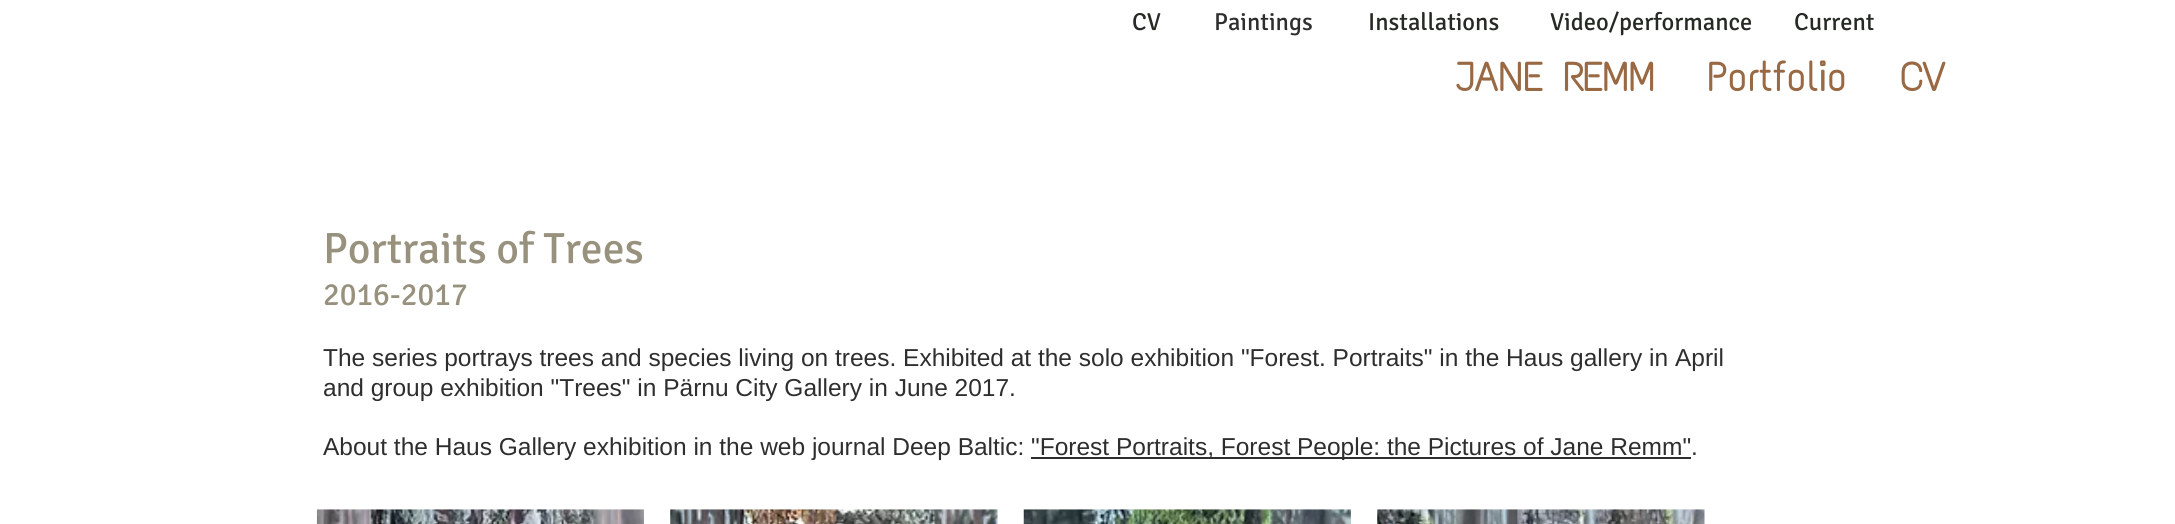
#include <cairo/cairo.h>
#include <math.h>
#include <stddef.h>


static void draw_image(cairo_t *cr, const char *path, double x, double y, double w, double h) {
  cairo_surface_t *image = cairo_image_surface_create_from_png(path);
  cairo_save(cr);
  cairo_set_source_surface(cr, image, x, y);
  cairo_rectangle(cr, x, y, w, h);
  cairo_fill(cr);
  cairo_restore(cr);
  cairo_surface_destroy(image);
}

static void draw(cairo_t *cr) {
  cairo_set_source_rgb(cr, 1, 1, 1);
  cairo_paint(cr);
  cairo_set_source_rgb(cr, 47 / 255.0, 46 / 255.0, 46 / 255.0);
  cairo_rectangle(cr, 1031, 457, 660, 2);
  cairo_fill(cr);
  draw_image(cr, "images/1.png", 316, 509, 328, 15);
  draw_image(cr, "images/2.png", 670, 509, 328, 15);
  draw_image(cr, "images/3.png", 1023, 509, 328, 15);
  draw_image(cr, "images/4.png", 1377, 509, 328, 15);
  cairo_select_font_face(cr, "Signika", CAIRO_FONT_SLANT_NORMAL, CAIRO_FONT_WEIGHT_NORMAL);
  cairo_set_font_size(cr, 24.5);
  cairo_set_source_rgb(cr, 38 / 255.0, 42 / 255.0, 36 / 255.0);
  cairo_move_to(cr, 1132, 30);
  cairo_show_text(cr, "CV");
  cairo_set_source_rgb(cr, 47 / 255.0, 46 / 255.0, 46 / 255.0);
  cairo_move_to(cr, 1214, 30);
  cairo_show_text(cr, "Paintings");
  cairo_set_source_rgb(cr, 38 / 255.0, 42 / 255.0, 36 / 255.0);
  cairo_move_to(cr, 1368, 30);
  cairo_show_text(cr, "Installations");
  cairo_move_to(cr, 1550, 30);
  cairo_show_text(cr, "Video/performance");
  cairo_move_to(cr, 1794, 30);
  cairo_show_text(cr, "Current");
  cairo_set_font_size(cr, 43.75);
  cairo_set_source_rgb(cr, 151 / 255.0, 145 / 255.0, 125 / 255.0);
  cairo_move_to(cr, 323, 263);
  cairo_show_text(cr, "Portraits of Trees");
  cairo_set_font_size(cr, 31.5);
  cairo_move_to(cr, 323, 305);
  cairo_show_text(cr, "2016-2017");
  cairo_select_font_face(cr, "Liberation Sans", CAIRO_FONT_SLANT_NORMAL, CAIRO_FONT_WEIGHT_NORMAL);
  cairo_set_font_size(cr, 24.5);
  cairo_set_source_rgb(cr, 47 / 255.0, 46 / 255.0, 46 / 255.0);
  cairo_move_to(cr, 323, 366);
  cairo_show_text(cr, "The series portrays trees and species living on trees. Exhibited at the solo exhibition \"Forest. Portraits\" in the Haus gallery in April");
  cairo_move_to(cr, 323, 396);
  cairo_show_text(cr, "and group exhibition \"Trees\" in Pärnu City Gallery in June 2017.");
  cairo_move_to(cr, 323, 455);
  cairo_show_text(cr, "About the Haus Gallery exhibition in the web journal Deep Baltic:");
  cairo_move_to(cr, 1031, 455);
  cairo_show_text(cr, "\"Forest Portraits, Forest People: the Pictures of Jane Remm\".");
  cairo_select_font_face(cr, "Text Me One", CAIRO_FONT_SLANT_NORMAL, CAIRO_FONT_WEIGHT_BOLD);
  cairo_set_font_size(cr, 40.25);
  cairo_set_source_rgb(cr, 153 / 255.0, 105 / 255.0, 68 / 255.0);
  cairo_move_to(cr, 1455, 91);
  cairo_show_text(cr, "JANE REMM");
  cairo_move_to(cr, 1707, 91);
  cairo_show_text(cr, "Portfolio");
  cairo_move_to(cr, 1900, 91);
  cairo_show_text(cr, "CV");
}

int main(void) {
  cairo_surface_t *surface = cairo_image_surface_create(CAIRO_FORMAT_RGB24, 2175, 524);
  cairo_t *cr = cairo_create(surface);
  cairo_font_options_t *options = cairo_font_options_create();
  cairo_font_options_set_hint_metrics(options, CAIRO_HINT_METRICS_OFF);
  cairo_font_options_set_hint_style(options, CAIRO_HINT_STYLE_NONE);
  cairo_set_font_options(cr, options);
  cairo_set_miter_limit(cr, 4);
  draw(cr);
  cairo_surface_write_to_png(surface, "out.png");
  cairo_font_options_destroy(options);
  cairo_destroy(cr);
  cairo_surface_destroy(surface);
  return 0;
}
